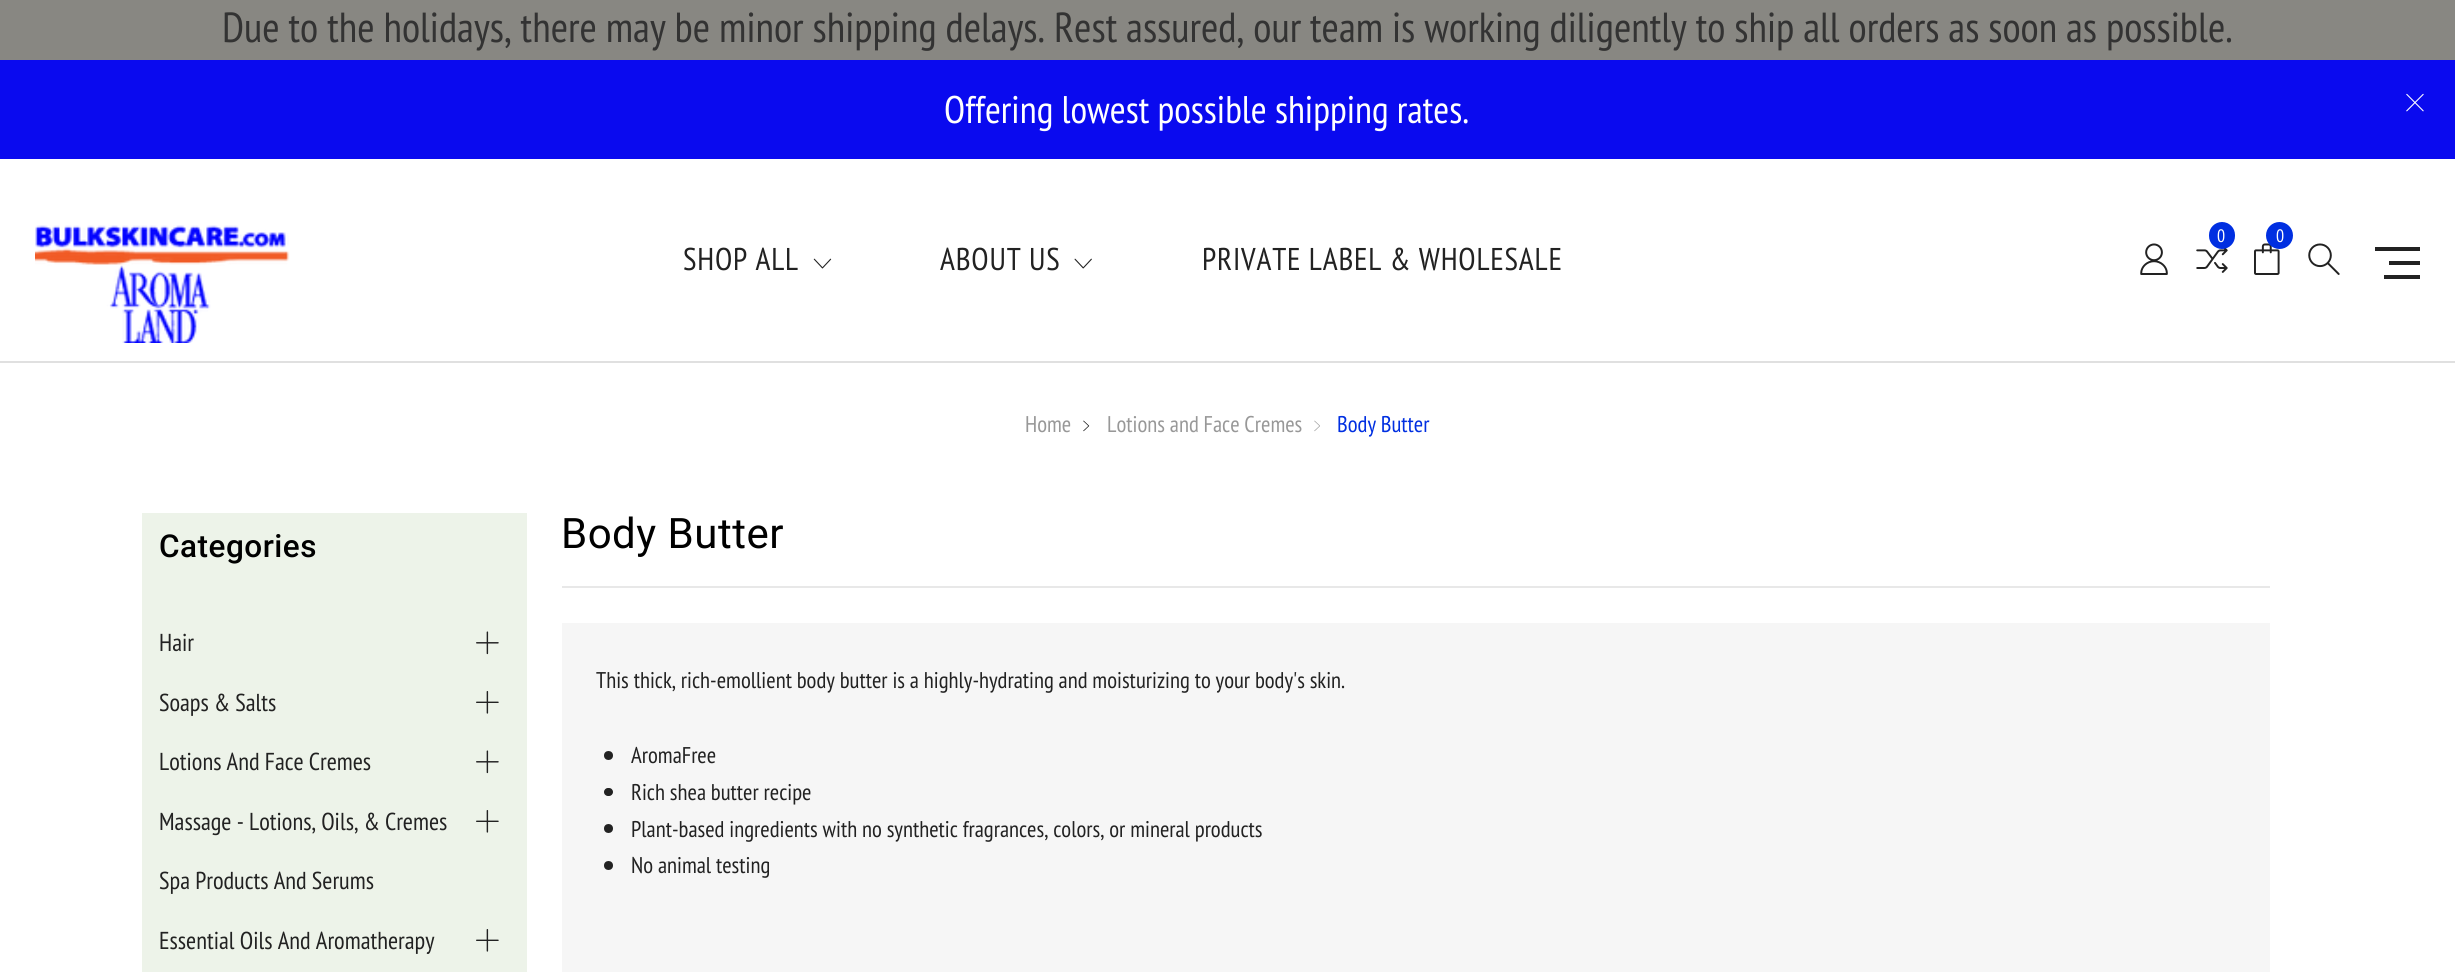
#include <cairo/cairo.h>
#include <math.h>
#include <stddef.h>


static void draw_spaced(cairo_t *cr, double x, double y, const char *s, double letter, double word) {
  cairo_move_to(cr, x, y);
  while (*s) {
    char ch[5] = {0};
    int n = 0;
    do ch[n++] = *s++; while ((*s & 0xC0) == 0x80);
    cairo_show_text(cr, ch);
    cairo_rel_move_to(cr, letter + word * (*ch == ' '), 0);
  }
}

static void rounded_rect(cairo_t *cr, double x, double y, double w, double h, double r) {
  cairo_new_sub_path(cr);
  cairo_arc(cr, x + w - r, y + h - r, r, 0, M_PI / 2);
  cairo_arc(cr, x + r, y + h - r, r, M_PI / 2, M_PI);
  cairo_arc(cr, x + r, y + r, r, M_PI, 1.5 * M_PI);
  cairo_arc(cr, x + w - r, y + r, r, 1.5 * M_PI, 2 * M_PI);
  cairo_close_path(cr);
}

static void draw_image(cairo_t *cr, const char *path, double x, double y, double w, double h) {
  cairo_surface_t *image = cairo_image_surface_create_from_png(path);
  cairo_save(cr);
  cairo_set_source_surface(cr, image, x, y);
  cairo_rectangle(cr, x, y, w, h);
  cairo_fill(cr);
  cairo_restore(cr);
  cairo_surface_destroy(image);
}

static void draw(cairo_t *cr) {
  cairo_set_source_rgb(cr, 1, 1, 1);
  cairo_paint(cr);
  cairo_set_source_rgb(cr, 136 / 255.0, 135 / 255.0, 130 / 255.0);
  cairo_rectangle(cr, 0, 0, 2455, 60);
  cairo_fill(cr);
  cairo_set_source_rgb(cr, 224 / 255.0, 224 / 255.0, 224 / 255.0);
  cairo_rectangle(cr, 0, 361, 2455, 2);
  cairo_fill(cr);
  cairo_set_source_rgb(cr, 10 / 255.0, 10 / 255.0, 239 / 255.0);
  cairo_rectangle(cr, 0, 60, 2455, 99);
  cairo_fill(cr);
  draw_image(cr, "images/1.png", 2406, 93, 18, 19);
  draw_image(cr, "images/2.png", 35, 225, 255, 118);
  draw_image(cr, "images/3.png", 2196, 248, 32, 25);
  cairo_set_source_rgb(cr, 0, 47 / 255.0, 225 / 255.0);
  rounded_rect(cr, 2209, 222, 26, 27, 13);
  cairo_fill(cr);
  draw_image(cr, "images/4.png", 2254, 243, 26, 32);
  cairo_arc(cr, 2279.5, 235.5, 13.5, 0, 2 * M_PI);
  cairo_fill(cr);
  draw_image(cr, "images/5.png", 2140, 243, 28, 32);
  draw_image(cr, "images/6.png", 2308, 243, 32, 32);
  cairo_set_source_rgb(cr, 34 / 255.0, 34 / 255.0, 34 / 255.0);
  cairo_rectangle(cr, 2375, 247, 45, 4);
  cairo_fill(cr);
  cairo_rectangle(cr, 2389, 261, 31, 4);
  cairo_fill(cr);
  cairo_rectangle(cr, 2384, 275, 36, 4);
  cairo_fill(cr);
  draw_image(cr, "images/7.png", 813, 258, 19, 11);
  draw_image(cr, "images/8.png", 1074, 258, 18, 11);
  draw_image(cr, "images/9.png", 1083, 420, 7, 12);
  draw_image(cr, "images/10.png", 1314, 420, 6, 12);
  cairo_set_source_rgb(cr, 237 / 255.0, 243 / 255.0, 233 / 255.0);
  cairo_rectangle(cr, 142, 513, 385, 459);
  cairo_fill(cr);
  draw_image(cr, "images/11.png", 476, 631, 23, 24);
  draw_image(cr, "images/12.png", 476, 691, 23, 23);
  draw_image(cr, "images/11.png", 476, 750, 23, 24);
  draw_image(cr, "images/12.png", 476, 810, 23, 23);
  draw_image(cr, "images/12.png", 476, 929, 23, 23);
  cairo_set_source_rgb(cr, 232 / 255.0, 232 / 255.0, 232 / 255.0);
  cairo_rectangle(cr, 562, 586, 1708, 2);
  cairo_fill(cr);
  cairo_set_source_rgb(cr, 246 / 255.0, 246 / 255.0, 246 / 255.0);
  cairo_rectangle(cr, 562, 623, 1708, 349);
  cairo_fill(cr);
  cairo_set_source_rgb(cr, 34 / 255.0, 34 / 255.0, 34 / 255.0);
  cairo_arc(cr, 608.5, 755.5, 4.5, 0, 2 * M_PI);
  cairo_fill(cr);
  rounded_rect(cr, 604, 788, 9, 8, 4);
  cairo_fill(cr);
  cairo_arc(cr, 608.5, 828.5, 4.5, 0, 2 * M_PI);
  cairo_fill(cr);
  cairo_arc(cr, 608.5, 865.5, 4.5, 0, 2 * M_PI);
  cairo_fill(cr);
  cairo_select_font_face(cr, "PT Sans Narrow", CAIRO_FONT_SLANT_NORMAL, CAIRO_FONT_WEIGHT_NORMAL);
  cairo_set_font_size(cr, 42);
  cairo_set_source_rgb(cr, 51 / 255.0, 51 / 255.0, 51 / 255.0);
  cairo_move_to(cr, 222, 42);
  cairo_show_text(cr, "Due to the holidays, there may be minor shipping delays. Rest assured, our team is working diligently to ship all orders as soon as possible.");
  cairo_set_font_size(cr, 38.5);
  cairo_set_source_rgb(cr, 1, 1, 1);
  cairo_move_to(cr, 944, 123);
  cairo_show_text(cr, "Offering lowest possible shipping rates.");
  cairo_set_font_size(cr, 18);
  cairo_move_to(cr, 2217, 242);
  cairo_show_text(cr, "0");
  cairo_move_to(cr, 2276, 242);
  cairo_show_text(cr, "0");
  cairo_set_font_size(cr, 31.5);
  cairo_set_source_rgb(cr, 34 / 255.0, 34 / 255.0, 34 / 255.0);
  draw_spaced(cr, 683, 270, "SHOP ALL", 0.8, 0);
  draw_spaced(cr, 940, 270, "ABOUT US", 0.8, 0);
  draw_spaced(cr, 1202, 270, "PRIVATE LABEL & WHOLESALE", 0.8, 0);
  cairo_set_font_size(cr, 22.75);
  cairo_set_source_rgb(cr, 152 / 255.0, 152 / 255.0, 152 / 255.0);
  cairo_move_to(cr, 1025, 432);
  cairo_show_text(cr, "Home");
  cairo_move_to(cr, 1107, 432);
  cairo_show_text(cr, "Lotions and Face Cremes");
  cairo_set_source_rgb(cr, 0, 47 / 255.0, 225 / 255.0);
  cairo_move_to(cr, 1337, 432);
  cairo_show_text(cr, "Body Butter");
  cairo_select_font_face(cr, "Roboto Medium", CAIRO_FONT_SLANT_NORMAL, CAIRO_FONT_WEIGHT_NORMAL);
  cairo_set_font_size(cr, 31.5);
  cairo_set_source_rgb(cr, 0, 0, 0);
  draw_spaced(cr, 159, 557, "Categories", 0.5, 0);
  cairo_select_font_face(cr, "PT Sans Narrow", CAIRO_FONT_SLANT_NORMAL, CAIRO_FONT_WEIGHT_NORMAL);
  cairo_set_font_size(cr, 24.5);
  cairo_set_source_rgb(cr, 34 / 255.0, 34 / 255.0, 34 / 255.0);
  cairo_move_to(cr, 159, 651);
  cairo_show_text(cr, "Hair");
  cairo_move_to(cr, 159, 711);
  cairo_show_text(cr, "Soaps & Salts");
  cairo_move_to(cr, 159, 770);
  cairo_show_text(cr, "Lotions And Face Cremes");
  cairo_move_to(cr, 159, 830);
  cairo_show_text(cr, "Massage - Lotions, Oils, & Cremes");
  cairo_move_to(cr, 159, 889);
  cairo_show_text(cr, "Spa Products And Serums");
  cairo_move_to(cr, 159, 949);
  cairo_show_text(cr, "Essential Oils And Aromatherapy");
  cairo_select_font_face(cr, "Roboto", CAIRO_FONT_SLANT_NORMAL, CAIRO_FONT_WEIGHT_NORMAL);
  cairo_set_font_size(cr, 42);
  cairo_set_source_rgb(cr, 0, 0, 0);
  draw_spaced(cr, 561, 548, "Body Butter", 0.5, 0);
  cairo_select_font_face(cr, "PT Sans Narrow", CAIRO_FONT_SLANT_NORMAL, CAIRO_FONT_WEIGHT_NORMAL);
  cairo_set_font_size(cr, 22.75);
  cairo_set_source_rgb(cr, 34 / 255.0, 34 / 255.0, 34 / 255.0);
  cairo_move_to(cr, 596, 688);
  cairo_show_text(cr, "This thick, rich-emollient body butter is a highly-hydrating and moisturizing to your body's skin.");
  cairo_move_to(cr, 631, 763);
  cairo_show_text(cr, "AromaFree");
  cairo_move_to(cr, 631, 800);
  cairo_show_text(cr, "Rich shea butter recipe");
  cairo_move_to(cr, 631, 837);
  cairo_show_text(cr, "Plant-based ingredients with no synthetic fragrances, colors, or mineral products");
  cairo_move_to(cr, 631, 873);
  cairo_show_text(cr, "No animal testing");
}

int main(void) {
  cairo_surface_t *surface = cairo_image_surface_create(CAIRO_FORMAT_RGB24, 2455, 972);
  cairo_t *cr = cairo_create(surface);
  cairo_font_options_t *options = cairo_font_options_create();
  cairo_font_options_set_hint_metrics(options, CAIRO_HINT_METRICS_OFF);
  cairo_font_options_set_hint_style(options, CAIRO_HINT_STYLE_NONE);
  cairo_set_font_options(cr, options);
  cairo_set_miter_limit(cr, 4);
  draw(cr);
  cairo_surface_write_to_png(surface, "out.png");
  cairo_font_options_destroy(options);
  cairo_destroy(cr);
  cairo_surface_destroy(surface);
  return 0;
}
